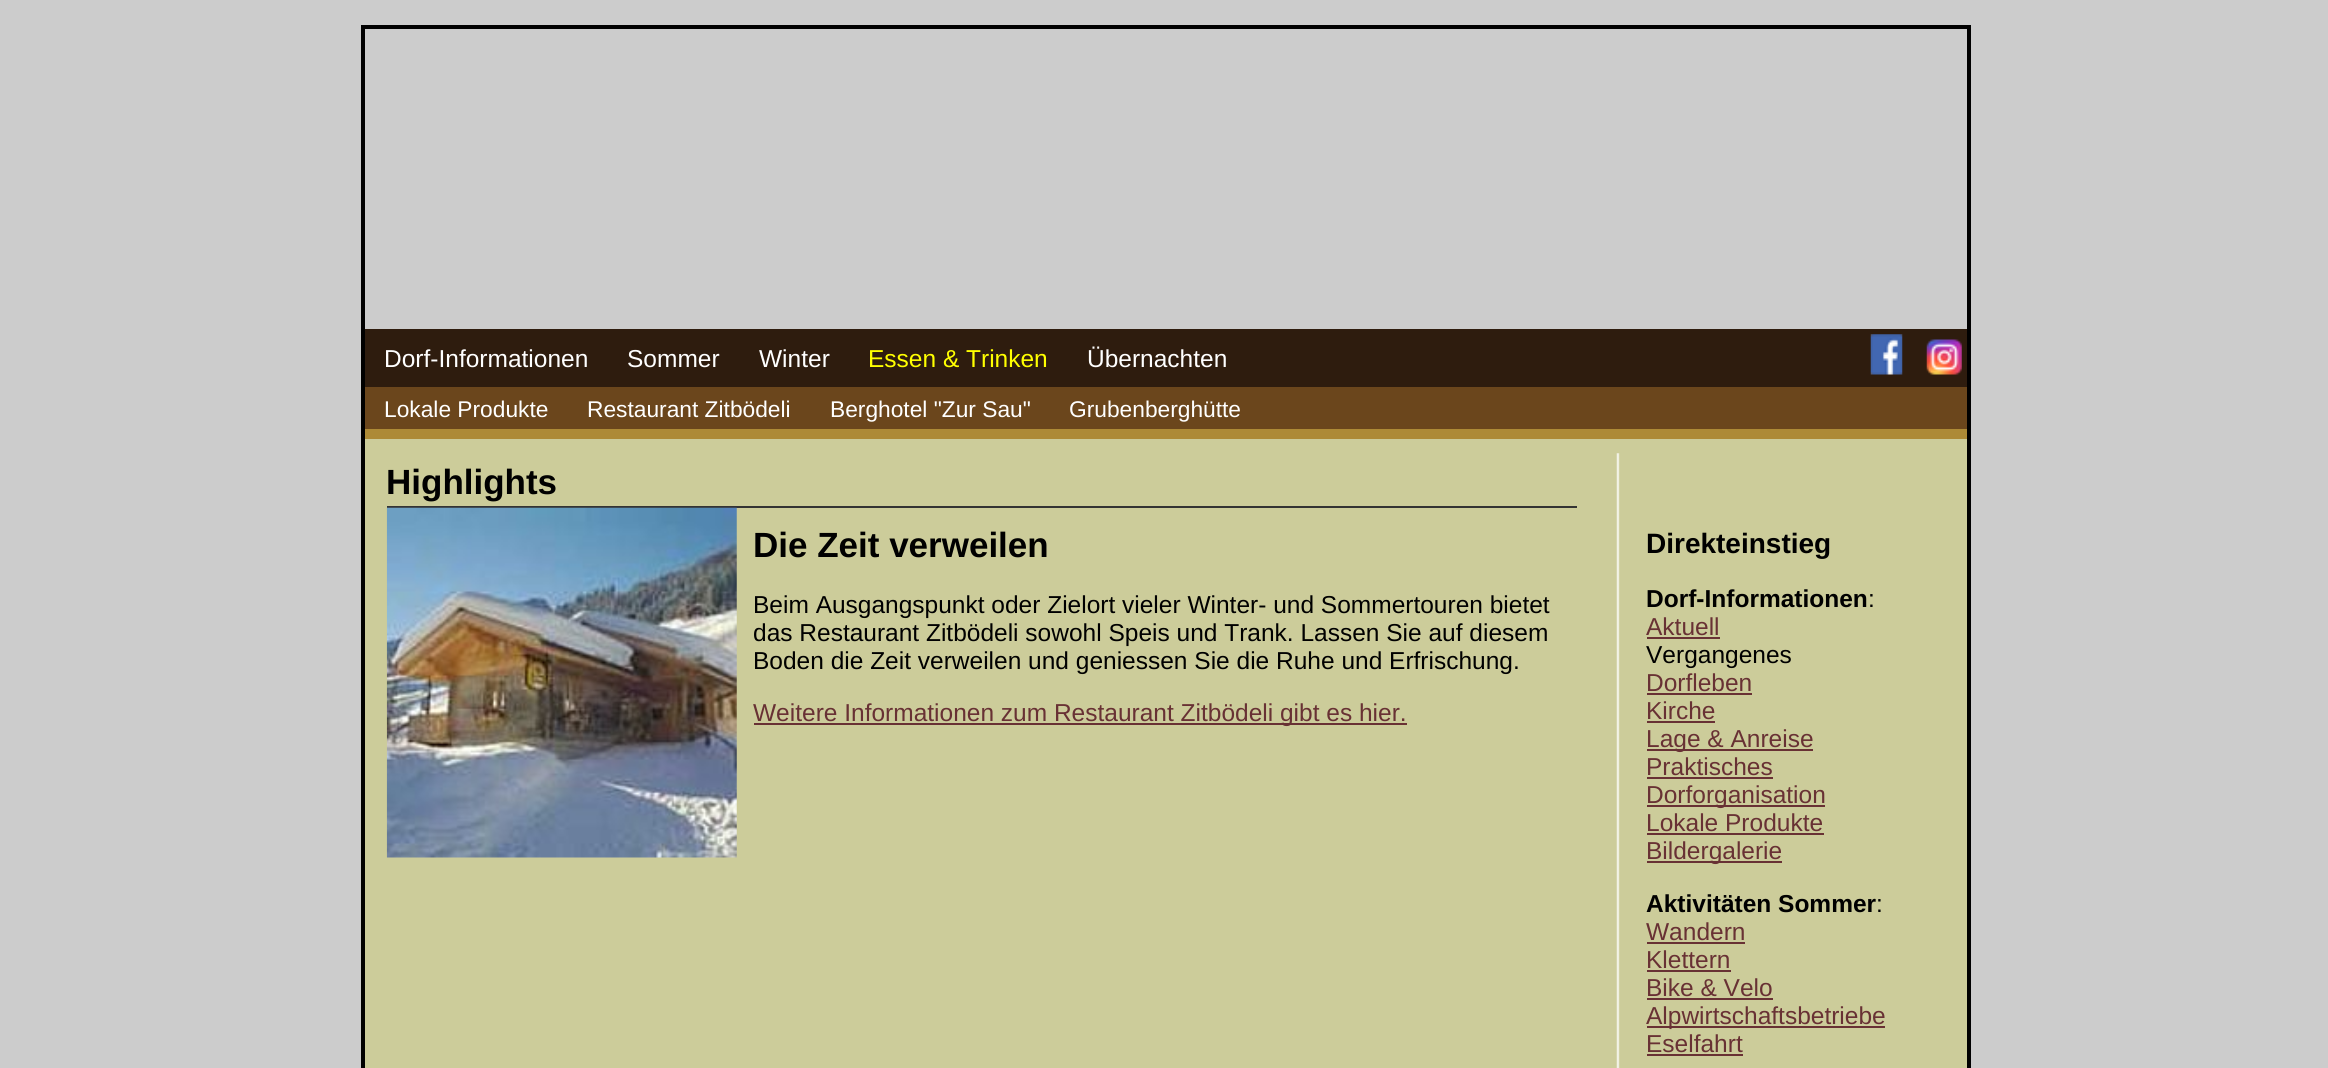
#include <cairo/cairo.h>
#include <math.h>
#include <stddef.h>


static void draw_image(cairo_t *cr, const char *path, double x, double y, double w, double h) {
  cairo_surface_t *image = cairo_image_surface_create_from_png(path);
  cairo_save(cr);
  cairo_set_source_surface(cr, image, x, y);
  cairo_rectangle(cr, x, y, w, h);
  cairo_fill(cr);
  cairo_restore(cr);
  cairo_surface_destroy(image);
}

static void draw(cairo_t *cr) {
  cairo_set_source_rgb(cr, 204 / 255.0, 204 / 255.0, 204 / 255.0);
  cairo_paint(cr);
  cairo_set_source_rgb(cr, 0, 0, 0);
  cairo_rectangle(cr, 361, 25, 1610, 4);
  cairo_fill(cr);
  cairo_rectangle(cr, 1967, 25, 4, 1043);
  cairo_fill(cr);
  cairo_rectangle(cr, 361, 25, 4, 1043);
  cairo_fill(cr);
  cairo_set_source_rgb(cr, 46 / 255.0, 28 / 255.0, 14 / 255.0);
  cairo_rectangle(cr, 365, 329, 1602, 58);
  cairo_fill(cr);
  draw_image(cr, "images/1.png", 1870, 334, 33, 41);
  draw_image(cr, "images/2.png", 1926, 339, 36, 36);
  cairo_set_source_rgb(cr, 107 / 255.0, 70 / 255.0, 28 / 255.0);
  cairo_rectangle(cr, 365, 387, 1602, 42);
  cairo_fill(cr);
  cairo_set_source_rgb(cr, 173 / 255.0, 138 / 255.0, 54 / 255.0);
  cairo_rectangle(cr, 365, 429, 1602, 10);
  cairo_fill(cr);
  cairo_set_source_rgb(cr, 204 / 255.0, 204 / 255.0, 154 / 255.0);
  cairo_rectangle(cr, 365, 439, 1602, 629);
  cairo_fill(cr);
  cairo_set_source_rgb(cr, 51 / 255.0, 51 / 255.0, 51 / 255.0);
  cairo_rectangle(cr, 387, 506, 1190, 2);
  cairo_fill(cr);
  draw_image(cr, "images/3.png", 386, 507, 351, 351);
  cairo_set_source_rgb(cr, 104 / 255.0, 49 / 255.0, 52 / 255.0);
  cairo_rectangle(cr, 754, 723, 653, 2);
  cairo_fill(cr);
  draw_image(cr, "images/4.png", 1616, 453, 4, 615);
  cairo_rectangle(cr, 1647, 637, 73, 2);
  cairo_fill(cr);
  cairo_rectangle(cr, 1647, 693, 105, 2);
  cairo_fill(cr);
  cairo_rectangle(cr, 1647, 721, 68, 2);
  cairo_fill(cr);
  cairo_rectangle(cr, 1647, 749, 166, 2);
  cairo_fill(cr);
  cairo_rectangle(cr, 1647, 777, 126, 2);
  cairo_fill(cr);
  cairo_rectangle(cr, 1647, 805, 178, 2);
  cairo_fill(cr);
  cairo_rectangle(cr, 1647, 833, 177, 2);
  cairo_fill(cr);
  cairo_rectangle(cr, 1647, 861, 135, 2);
  cairo_fill(cr);
  cairo_rectangle(cr, 1647, 942, 98, 2);
  cairo_fill(cr);
  cairo_rectangle(cr, 1647, 970, 84, 2);
  cairo_fill(cr);
  cairo_rectangle(cr, 1647, 998, 126, 2);
  cairo_fill(cr);
  cairo_rectangle(cr, 1647, 1026, 238, 2);
  cairo_fill(cr);
  cairo_rectangle(cr, 1647, 1054, 96, 2);
  cairo_fill(cr);
  cairo_select_font_face(cr, "Liberation Sans", CAIRO_FONT_SLANT_NORMAL, CAIRO_FONT_WEIGHT_NORMAL);
  cairo_set_font_size(cr, 24.5);
  cairo_set_source_rgb(cr, 1, 1, 1);
  cairo_move_to(cr, 384, 367);
  cairo_show_text(cr, "Dorf-Informationen");
  cairo_move_to(cr, 627, 367);
  cairo_show_text(cr, "Sommer");
  cairo_move_to(cr, 759, 367);
  cairo_show_text(cr, "Winter");
  cairo_set_source_rgb(cr, 1, 1, 0);
  cairo_move_to(cr, 868, 367);
  cairo_show_text(cr, "Essen & Trinken");
  cairo_set_source_rgb(cr, 1, 1, 1);
  cairo_move_to(cr, 1087, 367);
  cairo_show_text(cr, "Übernachten");
  cairo_set_font_size(cr, 22.75);
  cairo_move_to(cr, 384, 417);
  cairo_show_text(cr, "Lokale Produkte");
  cairo_move_to(cr, 587, 417);
  cairo_show_text(cr, "Restaurant Zitbödeli");
  cairo_move_to(cr, 830, 417);
  cairo_show_text(cr, "Berghotel \"Zur Sau\"");
  cairo_move_to(cr, 1069, 417);
  cairo_show_text(cr, "Grubenberghütte");
  cairo_select_font_face(cr, "Liberation Sans", CAIRO_FONT_SLANT_NORMAL, CAIRO_FONT_WEIGHT_BOLD);
  cairo_set_font_size(cr, 35);
  cairo_set_source_rgb(cr, 0, 0, 0);
  cairo_move_to(cr, 386, 494);
  cairo_show_text(cr, "Highlights");
  cairo_move_to(cr, 753, 557);
  cairo_show_text(cr, "Die Zeit verweilen");
  cairo_select_font_face(cr, "Liberation Sans", CAIRO_FONT_SLANT_NORMAL, CAIRO_FONT_WEIGHT_NORMAL);
  cairo_set_font_size(cr, 24.5);
  cairo_move_to(cr, 753, 613);
  cairo_show_text(cr, "Beim Ausgangspunkt oder Zielort vieler Winter- und Sommertouren bietet");
  cairo_move_to(cr, 753, 641);
  cairo_show_text(cr, "das Restaurant Zitbödeli sowohl Speis und Trank. Lassen Sie auf diesem");
  cairo_move_to(cr, 753, 669);
  cairo_show_text(cr, "Boden die Zeit verweilen und geniessen Sie die Ruhe und Erfrischung.");
  cairo_set_source_rgb(cr, 104 / 255.0, 49 / 255.0, 52 / 255.0);
  cairo_move_to(cr, 753, 721);
  cairo_show_text(cr, "Weitere Informationen zum Restaurant Zitbödeli gibt es hier.");
  cairo_select_font_face(cr, "Liberation Sans", CAIRO_FONT_SLANT_NORMAL, CAIRO_FONT_WEIGHT_BOLD);
  cairo_set_font_size(cr, 28);
  cairo_set_source_rgb(cr, 0, 0, 0);
  cairo_move_to(cr, 1646, 553);
  cairo_show_text(cr, "Direkteinstieg");
  cairo_set_font_size(cr, 24.5);
  cairo_move_to(cr, 1646, 607);
  cairo_show_text(cr, "Dorf-Informationen");
  cairo_select_font_face(cr, "Liberation Sans", CAIRO_FONT_SLANT_NORMAL, CAIRO_FONT_WEIGHT_NORMAL);
  cairo_move_to(cr, 1868, 607);
  cairo_show_text(cr, ":");
  cairo_set_source_rgb(cr, 104 / 255.0, 49 / 255.0, 52 / 255.0);
  cairo_move_to(cr, 1646, 635);
  cairo_show_text(cr, "Aktuell");
  cairo_set_source_rgb(cr, 0, 0, 0);
  cairo_move_to(cr, 1646, 663);
  cairo_show_text(cr, "Vergangenes");
  cairo_set_source_rgb(cr, 104 / 255.0, 49 / 255.0, 52 / 255.0);
  cairo_move_to(cr, 1646, 691);
  cairo_show_text(cr, "Dorfleben");
  cairo_move_to(cr, 1646, 719);
  cairo_show_text(cr, "Kirche");
  cairo_move_to(cr, 1646, 747);
  cairo_show_text(cr, "Lage & Anreise");
  cairo_move_to(cr, 1646, 775);
  cairo_show_text(cr, "Praktisches");
  cairo_move_to(cr, 1646, 803);
  cairo_show_text(cr, "Dorforganisation");
  cairo_move_to(cr, 1646, 831);
  cairo_show_text(cr, "Lokale Produkte");
  cairo_move_to(cr, 1646, 859);
  cairo_show_text(cr, "Bildergalerie");
  cairo_select_font_face(cr, "Liberation Sans", CAIRO_FONT_SLANT_NORMAL, CAIRO_FONT_WEIGHT_BOLD);
  cairo_set_source_rgb(cr, 0, 0, 0);
  cairo_move_to(cr, 1646, 912);
  cairo_show_text(cr, "Aktivitäten Sommer");
  cairo_select_font_face(cr, "Liberation Sans", CAIRO_FONT_SLANT_NORMAL, CAIRO_FONT_WEIGHT_NORMAL);
  cairo_move_to(cr, 1876, 912);
  cairo_show_text(cr, ":");
  cairo_set_source_rgb(cr, 104 / 255.0, 49 / 255.0, 52 / 255.0);
  cairo_move_to(cr, 1646, 940);
  cairo_show_text(cr, "Wandern");
  cairo_move_to(cr, 1646, 968);
  cairo_show_text(cr, "Klettern");
  cairo_move_to(cr, 1646, 996);
  cairo_show_text(cr, "Bike & Velo");
  cairo_move_to(cr, 1646, 1024);
  cairo_show_text(cr, "Alpwirtschaftsbetriebe");
  cairo_move_to(cr, 1646, 1052);
  cairo_show_text(cr, "Eselfahrt");
}

int main(void) {
  cairo_surface_t *surface = cairo_image_surface_create(CAIRO_FORMAT_RGB24, 2328, 1068);
  cairo_t *cr = cairo_create(surface);
  cairo_font_options_t *options = cairo_font_options_create();
  cairo_font_options_set_hint_metrics(options, CAIRO_HINT_METRICS_OFF);
  cairo_font_options_set_hint_style(options, CAIRO_HINT_STYLE_NONE);
  cairo_set_font_options(cr, options);
  cairo_set_miter_limit(cr, 4);
  draw(cr);
  cairo_surface_write_to_png(surface, "out.png");
  cairo_font_options_destroy(options);
  cairo_destroy(cr);
  cairo_surface_destroy(surface);
  return 0;
}
